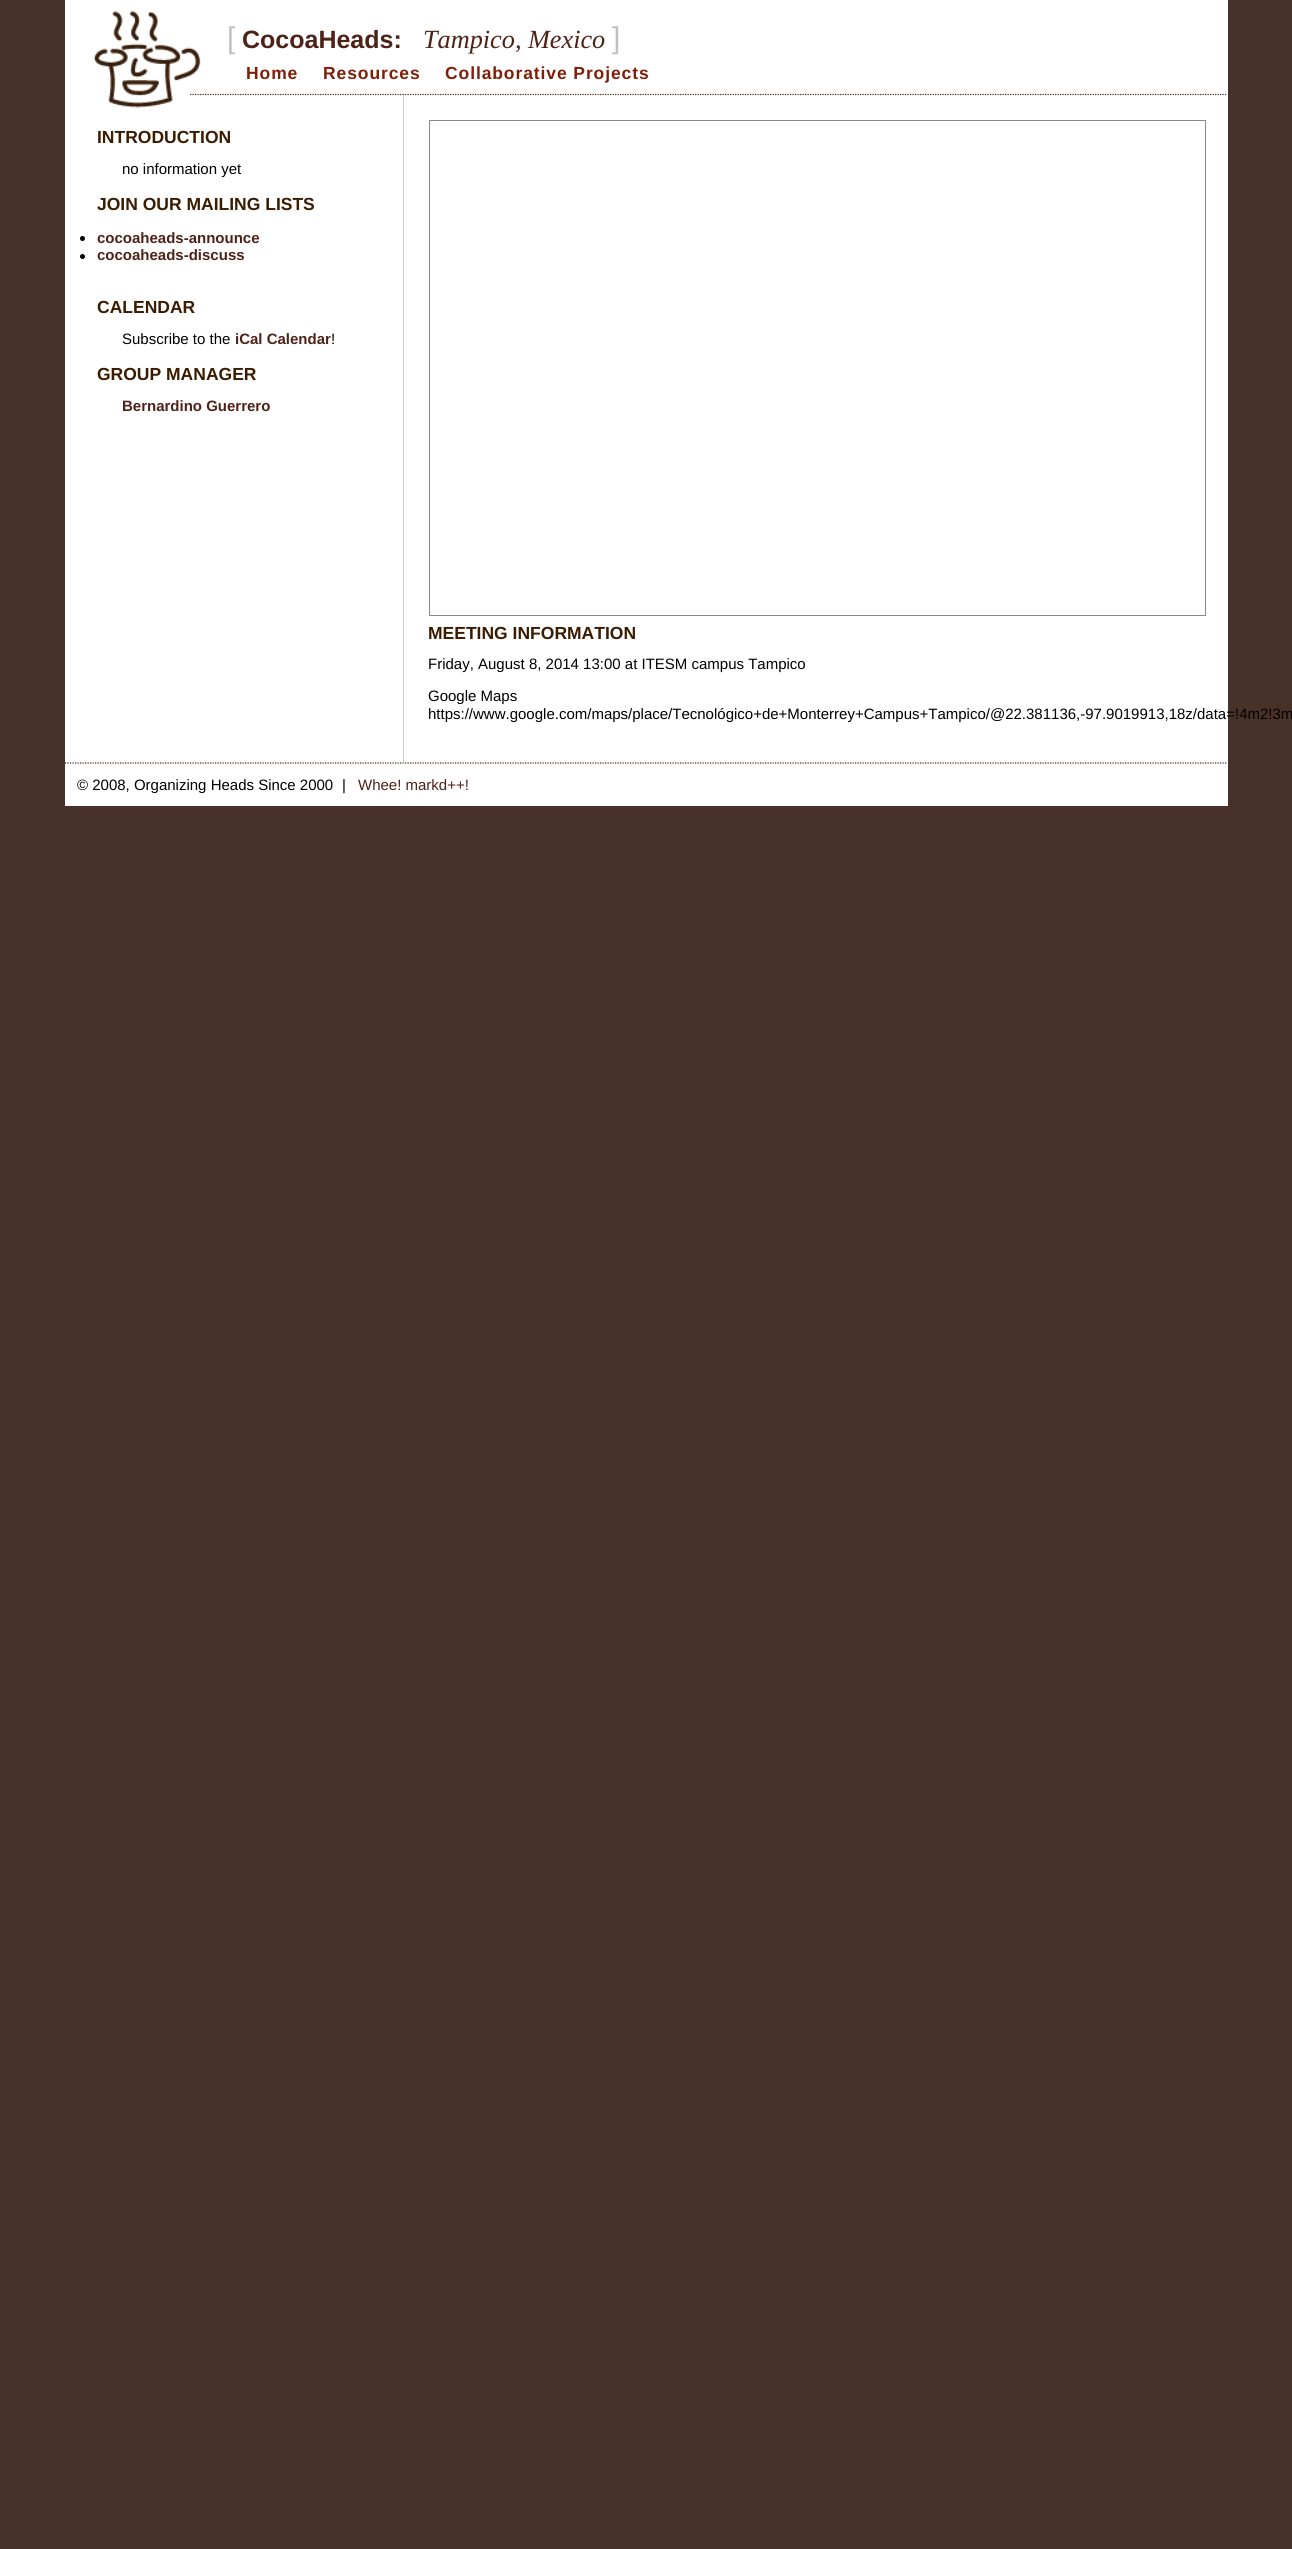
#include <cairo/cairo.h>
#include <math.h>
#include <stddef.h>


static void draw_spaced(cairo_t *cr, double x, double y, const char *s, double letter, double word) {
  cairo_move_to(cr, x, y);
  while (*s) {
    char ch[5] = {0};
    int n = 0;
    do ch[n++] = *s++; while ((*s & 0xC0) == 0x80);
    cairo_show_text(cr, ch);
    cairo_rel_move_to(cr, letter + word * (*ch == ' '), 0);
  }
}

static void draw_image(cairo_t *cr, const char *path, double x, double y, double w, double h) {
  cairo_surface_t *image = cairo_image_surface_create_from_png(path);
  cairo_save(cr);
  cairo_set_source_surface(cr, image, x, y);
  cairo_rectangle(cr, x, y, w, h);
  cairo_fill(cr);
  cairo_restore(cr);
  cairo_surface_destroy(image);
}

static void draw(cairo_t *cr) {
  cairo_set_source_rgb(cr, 71 / 255.0, 49 / 255.0, 40 / 255.0);
  cairo_paint(cr);
  cairo_set_source_rgb(cr, 1, 1, 1);
  cairo_rectangle(cr, 65, 0, 1163, 806);
  cairo_fill(cr);
  draw_image(cr, "images/1.png", 93, 11, 108, 97);
  cairo_new_path(cr);
  cairo_move_to(cr, 190, 94.5);
  cairo_line_to(cr, 1227.5, 94.5);
  cairo_set_source_rgb(cr, 64 / 255.0, 39 / 255.0, 18 / 255.0);
  cairo_set_line_width(cr, 1.2);
  cairo_set_dash(cr, (double[]){1.25, 1.25}, 2, 0);
  cairo_stroke(cr);
  cairo_set_source_rgb(cr, 0, 0, 0);
  cairo_arc(cr, 82.5, 238.5, 2.5, 0, 2 * M_PI);
  cairo_fill(cr);
  cairo_arc(cr, 82.5, 256.5, 2.5, 0, 2 * M_PI);
  cairo_fill(cr);
  cairo_new_path(cr);
  cairo_move_to(cr, 65, 763);
  cairo_line_to(cr, 1227.5, 763);
  cairo_set_source_rgb(cr, 64 / 255.0, 39 / 255.0, 18 / 255.0);
  cairo_stroke(cr);
  cairo_set_source_rgb(cr, 204 / 255.0, 204 / 255.0, 204 / 255.0);
  cairo_rectangle(cr, 403, 95, 1, 668);
  cairo_fill(cr);
  cairo_rectangle(cr, 429.5, 120.5, 776, 495);
  cairo_set_source_rgb(cr, 136 / 255.0, 136 / 255.0, 136 / 255.0);
  cairo_set_line_width(cr, 1);
  cairo_set_dash(cr, NULL, 0, 0);
  cairo_stroke(cr);
  cairo_select_font_face(cr, "Liberation Sans", CAIRO_FONT_SLANT_NORMAL, CAIRO_FONT_WEIGHT_NORMAL);
  cairo_set_font_size(cr, 30);
  cairo_set_source_rgb(cr, 192 / 255.0, 192 / 255.0, 192 / 255.0);
  cairo_move_to(cr, 227, 48);
  cairo_show_text(cr, "[");
  cairo_select_font_face(cr, "Liberation Sans", CAIRO_FONT_SLANT_NORMAL, CAIRO_FONT_WEIGHT_BOLD);
  cairo_set_font_size(cr, 25);
  cairo_set_source_rgb(cr, 79 / 255.0, 34 / 255.0, 24 / 255.0);
  cairo_move_to(cr, 242, 48);
  cairo_show_text(cr, "CocoaHeads:");
  cairo_select_font_face(cr, "Liberation Serif", CAIRO_FONT_SLANT_ITALIC, CAIRO_FONT_WEIGHT_NORMAL);
  cairo_set_font_size(cr, 26.25);
  cairo_move_to(cr, 423, 48);
  cairo_show_text(cr, "Tampico, Mexico");
  cairo_select_font_face(cr, "Liberation Sans", CAIRO_FONT_SLANT_NORMAL, CAIRO_FONT_WEIGHT_NORMAL);
  cairo_set_font_size(cr, 30);
  cairo_set_source_rgb(cr, 192 / 255.0, 192 / 255.0, 192 / 255.0);
  cairo_move_to(cr, 612, 48);
  cairo_show_text(cr, "]");
  cairo_select_font_face(cr, "Liberation Sans", CAIRO_FONT_SLANT_NORMAL, CAIRO_FONT_WEIGHT_BOLD);
  cairo_set_font_size(cr, 17.5);
  cairo_set_source_rgb(cr, 128 / 255.0, 30 / 255.0, 8 / 255.0);
  draw_spaced(cr, 246, 79, "Home", 0.9, 0);
  draw_spaced(cr, 323, 79, "Resources", 0.9, 0);
  draw_spaced(cr, 445, 79, "Collaborative Projects", 0.9, 0);
  cairo_set_source_rgb(cr, 60 / 255.0, 28 / 255.0, 0);
  cairo_move_to(cr, 97, 143);
  cairo_show_text(cr, "INTRODUCTION");
  cairo_select_font_face(cr, "Liberation Sans", CAIRO_FONT_SLANT_NORMAL, CAIRO_FONT_WEIGHT_NORMAL);
  cairo_set_font_size(cr, 15);
  cairo_set_source_rgb(cr, 0, 0, 0);
  cairo_move_to(cr, 122, 174);
  cairo_show_text(cr, "no information yet");
  cairo_select_font_face(cr, "Liberation Sans", CAIRO_FONT_SLANT_NORMAL, CAIRO_FONT_WEIGHT_BOLD);
  cairo_set_font_size(cr, 17.5);
  cairo_set_source_rgb(cr, 60 / 255.0, 28 / 255.0, 0);
  cairo_move_to(cr, 97, 210);
  cairo_show_text(cr, "JOIN OUR MAILING LISTS");
  cairo_set_font_size(cr, 15);
  cairo_set_source_rgb(cr, 79 / 255.0, 34 / 255.0, 24 / 255.0);
  cairo_move_to(cr, 97, 243);
  cairo_show_text(cr, "cocoaheads-announce");
  cairo_move_to(cr, 97, 260);
  cairo_show_text(cr, "cocoaheads-discuss");
  cairo_set_font_size(cr, 17.5);
  cairo_set_source_rgb(cr, 60 / 255.0, 28 / 255.0, 0);
  cairo_move_to(cr, 97, 313);
  cairo_show_text(cr, "CALENDAR");
  cairo_select_font_face(cr, "Liberation Sans", CAIRO_FONT_SLANT_NORMAL, CAIRO_FONT_WEIGHT_NORMAL);
  cairo_set_font_size(cr, 15);
  cairo_set_source_rgb(cr, 0, 0, 0);
  cairo_move_to(cr, 122, 344);
  cairo_show_text(cr, "Subscribe to the");
  cairo_select_font_face(cr, "Liberation Sans", CAIRO_FONT_SLANT_NORMAL, CAIRO_FONT_WEIGHT_BOLD);
  cairo_set_source_rgb(cr, 79 / 255.0, 34 / 255.0, 24 / 255.0);
  cairo_move_to(cr, 235, 344);
  cairo_show_text(cr, "iCal Calendar");
  cairo_select_font_face(cr, "Liberation Sans", CAIRO_FONT_SLANT_NORMAL, CAIRO_FONT_WEIGHT_NORMAL);
  cairo_set_source_rgb(cr, 0, 0, 0);
  cairo_move_to(cr, 331, 344);
  cairo_show_text(cr, "!");
  cairo_select_font_face(cr, "Liberation Sans", CAIRO_FONT_SLANT_NORMAL, CAIRO_FONT_WEIGHT_BOLD);
  cairo_set_font_size(cr, 17.5);
  cairo_set_source_rgb(cr, 60 / 255.0, 28 / 255.0, 0);
  cairo_move_to(cr, 97, 380);
  cairo_show_text(cr, "GROUP MANAGER");
  cairo_set_font_size(cr, 15);
  cairo_set_source_rgb(cr, 79 / 255.0, 34 / 255.0, 24 / 255.0);
  cairo_move_to(cr, 122, 411);
  cairo_show_text(cr, "Bernardino Guerrero");
  cairo_set_font_size(cr, 17.5);
  cairo_set_source_rgb(cr, 60 / 255.0, 28 / 255.0, 0);
  cairo_move_to(cr, 428, 639);
  cairo_show_text(cr, "MEETING INFORMATION");
  cairo_select_font_face(cr, "Liberation Sans", CAIRO_FONT_SLANT_NORMAL, CAIRO_FONT_WEIGHT_NORMAL);
  cairo_set_font_size(cr, 15);
  cairo_set_source_rgb(cr, 0, 0, 0);
  cairo_move_to(cr, 428, 669);
  cairo_show_text(cr, "Friday, August 8, 2014 13:00 at ITESM campus Tampico");
  cairo_move_to(cr, 428, 701);
  cairo_show_text(cr, "Google Maps");
  cairo_move_to(cr, 428, 719);
  cairo_show_text(cr, "https://www.google.com/maps/place/Tecnológico+de+Monterrey+Campus+Tampico/@22.381136,-97.9019913,18z/data=!4m2!3m");
  cairo_move_to(cr, 77, 790);
  cairo_show_text(cr, "© 2008, Organizing Heads Since 2000");
  cairo_move_to(cr, 342, 790);
  cairo_show_text(cr, "|");
  cairo_set_source_rgb(cr, 79 / 255.0, 34 / 255.0, 24 / 255.0);
  cairo_move_to(cr, 358, 790);
  cairo_show_text(cr, "Whee! markd++!");
}

int main(void) {
  cairo_surface_t *surface = cairo_image_surface_create(CAIRO_FORMAT_RGB24, 1292, 2549);
  cairo_t *cr = cairo_create(surface);
  cairo_font_options_t *options = cairo_font_options_create();
  cairo_font_options_set_hint_metrics(options, CAIRO_HINT_METRICS_OFF);
  cairo_font_options_set_hint_style(options, CAIRO_HINT_STYLE_NONE);
  cairo_set_font_options(cr, options);
  cairo_set_miter_limit(cr, 4);
  draw(cr);
  cairo_surface_write_to_png(surface, "out.png");
  cairo_font_options_destroy(options);
  cairo_destroy(cr);
  cairo_surface_destroy(surface);
  return 0;
}
